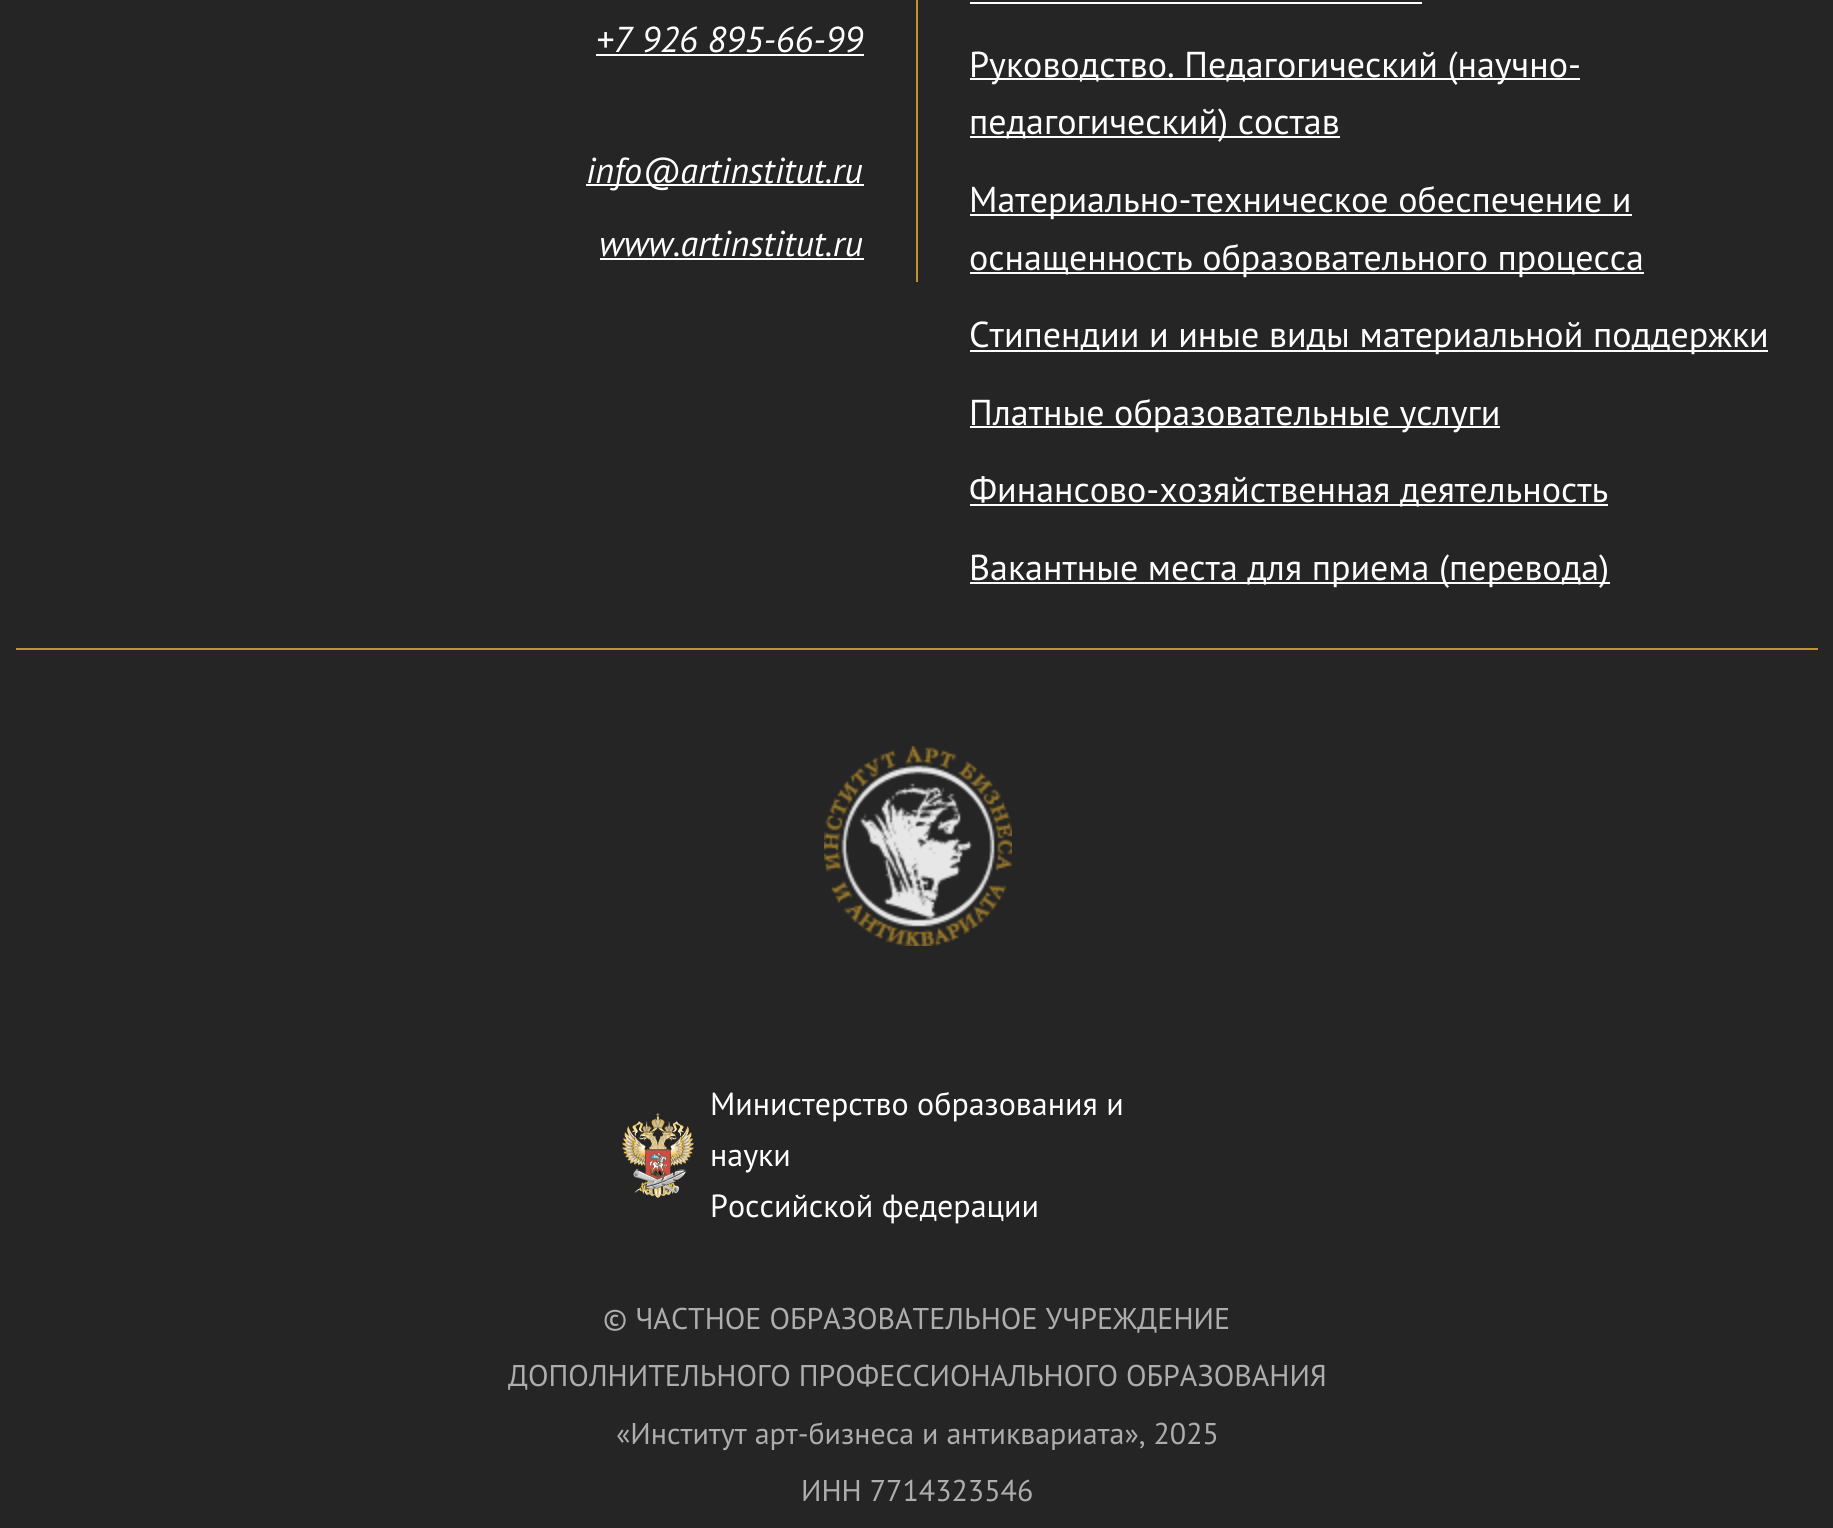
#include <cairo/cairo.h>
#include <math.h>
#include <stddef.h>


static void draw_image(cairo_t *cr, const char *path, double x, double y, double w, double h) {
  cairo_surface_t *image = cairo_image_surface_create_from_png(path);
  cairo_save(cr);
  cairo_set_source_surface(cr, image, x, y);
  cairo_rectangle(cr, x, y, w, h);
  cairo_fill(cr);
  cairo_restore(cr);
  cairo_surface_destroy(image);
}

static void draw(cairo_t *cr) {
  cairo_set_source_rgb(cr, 37 / 255.0, 37 / 255.0, 37 / 255.0);
  cairo_paint(cr);
  cairo_set_source_rgb(cr, 195 / 255.0, 146 / 255.0, 49 / 255.0);
  cairo_rectangle(cr, 916, 0, 2, 282);
  cairo_fill(cr);
  cairo_set_source_rgb(cr, 1, 1, 1);
  cairo_rectangle(cr, 596, 54, 268, 2);
  cairo_fill(cr);
  cairo_rectangle(cr, 586, 184, 278, 2);
  cairo_fill(cr);
  cairo_rectangle(cr, 600, 258, 264, 2);
  cairo_fill(cr);
  cairo_rectangle(cr, 970, 2, 452, 2);
  cairo_fill(cr);
  cairo_rectangle(cr, 970, 78, 610, 2);
  cairo_fill(cr);
  cairo_rectangle(cr, 970, 136, 370, 2);
  cairo_fill(cr);
  cairo_rectangle(cr, 970, 214, 662, 2);
  cairo_fill(cr);
  cairo_rectangle(cr, 970, 272, 674, 2);
  cairo_fill(cr);
  cairo_rectangle(cr, 970, 350, 798, 2);
  cairo_fill(cr);
  cairo_rectangle(cr, 970, 426, 530, 2);
  cairo_fill(cr);
  cairo_rectangle(cr, 970, 504, 638, 2);
  cairo_fill(cr);
  cairo_rectangle(cr, 970, 582, 640, 2);
  cairo_fill(cr);
  cairo_set_source_rgb(cr, 195 / 255.0, 146 / 255.0, 49 / 255.0);
  cairo_rectangle(cr, 16, 648, 1802, 2);
  cairo_fill(cr);
  draw_image(cr, "images/1.png", 824, 746, 188, 200);
  draw_image(cr, "images/2.png", 622, 1113, 72, 85);
  cairo_select_font_face(cr, "PT Sans", CAIRO_FONT_SLANT_ITALIC, CAIRO_FONT_WEIGHT_NORMAL);
  cairo_set_font_size(cr, 36);
  cairo_set_source_rgb(cr, 1, 1, 1);
  cairo_move_to(cr, 596, 52);
  cairo_show_text(cr, "+7 926 895-66-99");
  cairo_move_to(cr, 586, 183);
  cairo_show_text(cr, "info@artinstitut.ru");
  cairo_move_to(cr, 599, 256);
  cairo_show_text(cr, "www.artinstitut.ru");
  cairo_select_font_face(cr, "PT Sans", CAIRO_FONT_SLANT_NORMAL, CAIRO_FONT_WEIGHT_NORMAL);
  cairo_move_to(cr, 969, 77);
  cairo_show_text(cr, "Руководство. Педагогический (научно-");
  cairo_move_to(cr, 969, 134);
  cairo_show_text(cr, "педагогический) состав");
  cairo_move_to(cr, 969, 212);
  cairo_show_text(cr, "Материально-техническое обеспечение и");
  cairo_move_to(cr, 969, 270);
  cairo_show_text(cr, "оснащенность образовательного процесса");
  cairo_move_to(cr, 969, 347);
  cairo_show_text(cr, "Стипендии и иные виды материальной поддержки");
  cairo_move_to(cr, 969, 425);
  cairo_show_text(cr, "Платные образовательные услуги");
  cairo_move_to(cr, 969, 502);
  cairo_show_text(cr, "Финансово-хозяйственная деятельность");
  cairo_move_to(cr, 969, 580);
  cairo_show_text(cr, "Вакантные места для приема (перевода)");
  cairo_set_font_size(cr, 32);
  cairo_move_to(cr, 710, 1115);
  cairo_show_text(cr, "Министерство образования и");
  cairo_move_to(cr, 710, 1166);
  cairo_show_text(cr, "науки");
  cairo_move_to(cr, 710, 1217);
  cairo_show_text(cr, "Российской федерации");
  cairo_set_font_size(cr, 30);
  cairo_set_source_rgb(cr, 173 / 255.0, 173 / 255.0, 174 / 255.0);
  cairo_move_to(cr, 603, 1329);
  cairo_show_text(cr, "© ЧАСТНОЕ ОБРАЗОВАТЕЛЬНОЕ УЧРЕЖДЕНИЕ");
  cairo_move_to(cr, 508, 1386);
  cairo_show_text(cr, "ДОПОЛНИТЕЛЬНОГО ПРОФЕССИОНАЛЬНОГО ОБРАЗОВАНИЯ");
  cairo_move_to(cr, 616, 1444);
  cairo_show_text(cr, "«Институт арт-бизнеса и антиквариата», 2025");
  cairo_move_to(cr, 801, 1501);
  cairo_show_text(cr, "ИНН 7714323546");
}

int main(void) {
  cairo_surface_t *surface = cairo_image_surface_create(CAIRO_FORMAT_RGB24, 1833, 1528);
  cairo_t *cr = cairo_create(surface);
  cairo_font_options_t *options = cairo_font_options_create();
  cairo_font_options_set_hint_metrics(options, CAIRO_HINT_METRICS_OFF);
  cairo_font_options_set_hint_style(options, CAIRO_HINT_STYLE_NONE);
  cairo_set_font_options(cr, options);
  cairo_set_miter_limit(cr, 4);
  draw(cr);
  cairo_surface_write_to_png(surface, "out.png");
  cairo_font_options_destroy(options);
  cairo_destroy(cr);
  cairo_surface_destroy(surface);
  return 0;
}
